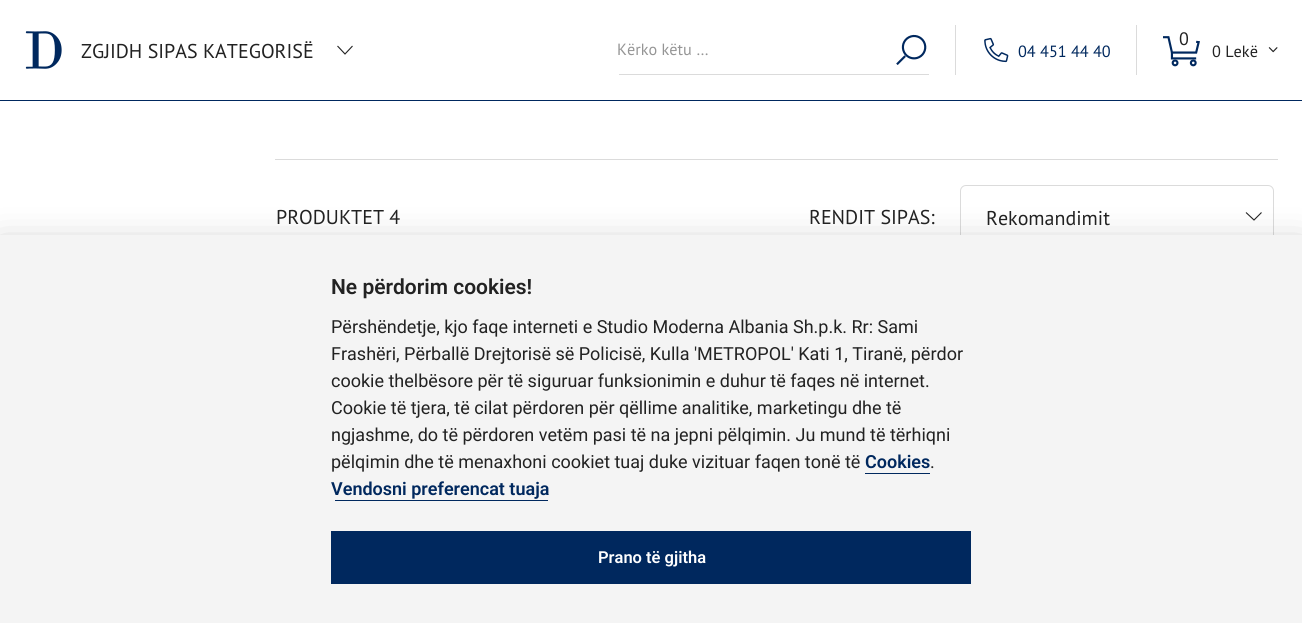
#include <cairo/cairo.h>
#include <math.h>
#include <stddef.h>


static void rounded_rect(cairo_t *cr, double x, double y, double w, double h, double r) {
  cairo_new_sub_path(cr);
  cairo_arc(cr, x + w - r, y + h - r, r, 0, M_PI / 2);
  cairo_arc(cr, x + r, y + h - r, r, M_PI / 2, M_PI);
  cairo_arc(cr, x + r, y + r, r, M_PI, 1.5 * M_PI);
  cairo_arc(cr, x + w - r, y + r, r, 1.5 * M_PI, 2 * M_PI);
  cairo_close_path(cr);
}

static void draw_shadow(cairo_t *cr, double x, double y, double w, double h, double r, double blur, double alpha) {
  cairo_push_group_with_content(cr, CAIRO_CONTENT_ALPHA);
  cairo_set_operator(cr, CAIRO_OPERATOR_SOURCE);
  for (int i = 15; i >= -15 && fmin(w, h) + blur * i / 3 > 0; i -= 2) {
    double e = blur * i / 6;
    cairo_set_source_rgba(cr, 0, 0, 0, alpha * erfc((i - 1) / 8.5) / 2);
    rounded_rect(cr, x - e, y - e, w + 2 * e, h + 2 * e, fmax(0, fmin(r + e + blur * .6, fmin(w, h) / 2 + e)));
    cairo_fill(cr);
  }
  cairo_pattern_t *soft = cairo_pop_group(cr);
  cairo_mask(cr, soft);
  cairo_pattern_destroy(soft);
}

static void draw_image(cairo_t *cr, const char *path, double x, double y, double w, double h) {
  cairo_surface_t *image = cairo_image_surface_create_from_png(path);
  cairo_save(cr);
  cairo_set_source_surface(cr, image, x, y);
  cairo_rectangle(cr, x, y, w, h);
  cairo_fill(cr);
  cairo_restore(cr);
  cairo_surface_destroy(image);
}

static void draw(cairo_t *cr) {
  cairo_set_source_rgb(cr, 1, 1, 1);
  cairo_paint(cr);
  cairo_set_source_rgb(cr, 0, 40 / 255.0, 94 / 255.0);
  cairo_rectangle(cr, 0, 100, 1302, 1);
  cairo_fill(cr);
  draw_image(cr, "images/1.png", 25, 31, 37, 38);
  cairo_new_path(cr);
  cairo_move_to(cr, 352.5, 46);
  cairo_line_to(cr, 345, 54);
  cairo_line_to(cr, 337.5, 46);
  cairo_set_source_rgb(cr, 34 / 255.0, 34 / 255.0, 34 / 255.0);
  cairo_set_line_width(cr, 1.1);
  cairo_stroke(cr);
  cairo_set_source_rgb(cr, 219 / 255.0, 219 / 255.0, 219 / 255.0);
  cairo_rectangle(cr, 955, 25, 1, 50);
  cairo_fill(cr);
  cairo_rectangle(cr, 619, 74, 310, 1);
  cairo_fill(cr);
  draw_image(cr, "images/2.png", 896, 34, 31, 31);
  cairo_rectangle(cr, 1136, 25, 1, 50);
  cairo_fill(cr);
  draw_image(cr, "images/3.png", 984, 37, 25, 26);
  draw_image(cr, "images/4.png", 1163, 36, 37, 31);
  draw_image(cr, "images/5.png", 1268, 47, 10, 6);
  cairo_rectangle(cr, 275, 159, 1003, 1);
  cairo_fill(cr);
  cairo_new_path(cr);
  cairo_move_to(cr, 1261.5, 212.5);
  cairo_line_to(cr, 1254, 220);
  cairo_line_to(cr, 1246, 212.5);
  cairo_set_source_rgb(cr, 34 / 255.0, 34 / 255.0, 34 / 255.0);
  cairo_stroke(cr);
  rounded_rect(cr, 960.5, 185.5, 313, 62, 5.5);
  cairo_set_source_rgb(cr, 219 / 255.0, 219 / 255.0, 219 / 255.0);
  cairo_set_line_width(cr, 1);
  cairo_stroke(cr);
  cairo_set_source_rgb(cr, 2 / 255.0, 2 / 255.0, 3 / 255.0);
  draw_shadow(cr, 0, 248, 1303, 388, 0, 19, 0.28);
  cairo_set_source_rgb(cr, 244 / 255.0, 244 / 255.0, 244 / 255.0);
  cairo_rectangle(cr, 0, 235, 1302, 388);
  cairo_fill(cr);
  cairo_set_source_rgb(cr, 0, 40 / 255.0, 94 / 255.0);
  cairo_rectangle(cr, 865, 473, 65, 1);
  cairo_fill(cr);
  cairo_rectangle(cr, 335, 500, 213, 1);
  cairo_fill(cr);
  cairo_rectangle(cr, 331, 531, 640, 53);
  cairo_fill(cr);
  cairo_select_font_face(cr, "PT Sans", CAIRO_FONT_SLANT_NORMAL, CAIRO_FONT_WEIGHT_NORMAL);
  cairo_set_font_size(cr, 20);
  cairo_set_source_rgb(cr, 34 / 255.0, 34 / 255.0, 34 / 255.0);
  cairo_move_to(cr, 81, 58);
  cairo_show_text(cr, "ZGJIDH SIPAS KATEGORISË");
  cairo_set_font_size(cr, 16.25);
  cairo_set_source_rgb(cr, 149 / 255.0, 149 / 255.0, 149 / 255.0);
  cairo_move_to(cr, 617, 55);
  cairo_show_text(cr, "Kërko këtu …");
  cairo_set_source_rgb(cr, 0, 40 / 255.0, 94 / 255.0);
  cairo_move_to(cr, 1018, 57);
  cairo_show_text(cr, "04 451 44 40");
  cairo_set_font_size(cr, 18);
  cairo_set_source_rgb(cr, 34 / 255.0, 34 / 255.0, 34 / 255.0);
  cairo_move_to(cr, 1179, 45);
  cairo_show_text(cr, "0");
  cairo_set_font_size(cr, 16.25);
  cairo_move_to(cr, 1212, 57);
  cairo_show_text(cr, "0 Lekë");
  cairo_set_font_size(cr, 20);
  cairo_move_to(cr, 276, 224);
  cairo_show_text(cr, "PRODUKTET 4");
  cairo_move_to(cr, 809, 224);
  cairo_show_text(cr, "RENDIT SIPAS:");
  cairo_move_to(cr, 986, 225);
  cairo_show_text(cr, "Rekomandimit");
  cairo_select_font_face(cr, "Roboto SemiBold", CAIRO_FONT_SLANT_NORMAL, CAIRO_FONT_WEIGHT_NORMAL);
  cairo_set_font_size(cr, 21);
  cairo_move_to(cr, 331, 294);
  cairo_show_text(cr, "Ne përdorim cookies!");
  cairo_select_font_face(cr, "Roboto", CAIRO_FONT_SLANT_NORMAL, CAIRO_FONT_WEIGHT_NORMAL);
  cairo_set_font_size(cr, 18);
  cairo_move_to(cr, 331, 333);
  cairo_show_text(cr, "Përshëndetje, kjo faqe interneti e Studio Moderna Albania Sh.p.k. Rr: Sami");
  cairo_move_to(cr, 331, 360);
  cairo_show_text(cr, "Frashëri, Përballë Drejtorisë së Policisë, Kulla 'METROPOL' Kati 1, Tiranë, përdor");
  cairo_move_to(cr, 331, 387);
  cairo_show_text(cr, "cookie thelbësore për të siguruar funksionimin e duhur të faqes në internet.");
  cairo_move_to(cr, 331, 414);
  cairo_show_text(cr, "Cookie të tjera, të cilat përdoren për qëllime analitike, marketingu dhe të");
  cairo_move_to(cr, 331, 441);
  cairo_show_text(cr, "ngjashme, do të përdoren vetëm pasi të na jepni pëlqimin. Ju mund të tërhiqni");
  cairo_move_to(cr, 331, 468);
  cairo_show_text(cr, "pëlqimin dhe të menaxhoni cookiet tuaj duke vizituar faqen tonë të");
  cairo_select_font_face(cr, "Roboto SemiBold", CAIRO_FONT_SLANT_NORMAL, CAIRO_FONT_WEIGHT_NORMAL);
  cairo_set_source_rgb(cr, 0, 40 / 255.0, 94 / 255.0);
  cairo_move_to(cr, 865, 468);
  cairo_show_text(cr, "Cookies");
  cairo_select_font_face(cr, "Roboto", CAIRO_FONT_SLANT_NORMAL, CAIRO_FONT_WEIGHT_NORMAL);
  cairo_set_source_rgb(cr, 34 / 255.0, 34 / 255.0, 34 / 255.0);
  cairo_move_to(cr, 930, 468);
  cairo_show_text(cr, ".");
  cairo_select_font_face(cr, "Roboto SemiBold", CAIRO_FONT_SLANT_NORMAL, CAIRO_FONT_WEIGHT_NORMAL);
  cairo_set_source_rgb(cr, 0, 40 / 255.0, 94 / 255.0);
  cairo_move_to(cr, 331, 495);
  cairo_show_text(cr, "Vendosni preferencat tuaja");
  cairo_set_font_size(cr, 16.5);
  cairo_set_source_rgb(cr, 1, 1, 1);
  cairo_move_to(cr, 598, 563);
  cairo_show_text(cr, "Prano të gjitha");
}

int main(void) {
  cairo_surface_t *surface = cairo_image_surface_create(CAIRO_FORMAT_RGB24, 1302, 623);
  cairo_t *cr = cairo_create(surface);
  cairo_font_options_t *options = cairo_font_options_create();
  cairo_font_options_set_hint_metrics(options, CAIRO_HINT_METRICS_OFF);
  cairo_font_options_set_hint_style(options, CAIRO_HINT_STYLE_NONE);
  cairo_set_font_options(cr, options);
  cairo_set_miter_limit(cr, 4);
  draw(cr);
  cairo_surface_write_to_png(surface, "out.png");
  cairo_font_options_destroy(options);
  cairo_destroy(cr);
  cairo_surface_destroy(surface);
  return 0;
}
